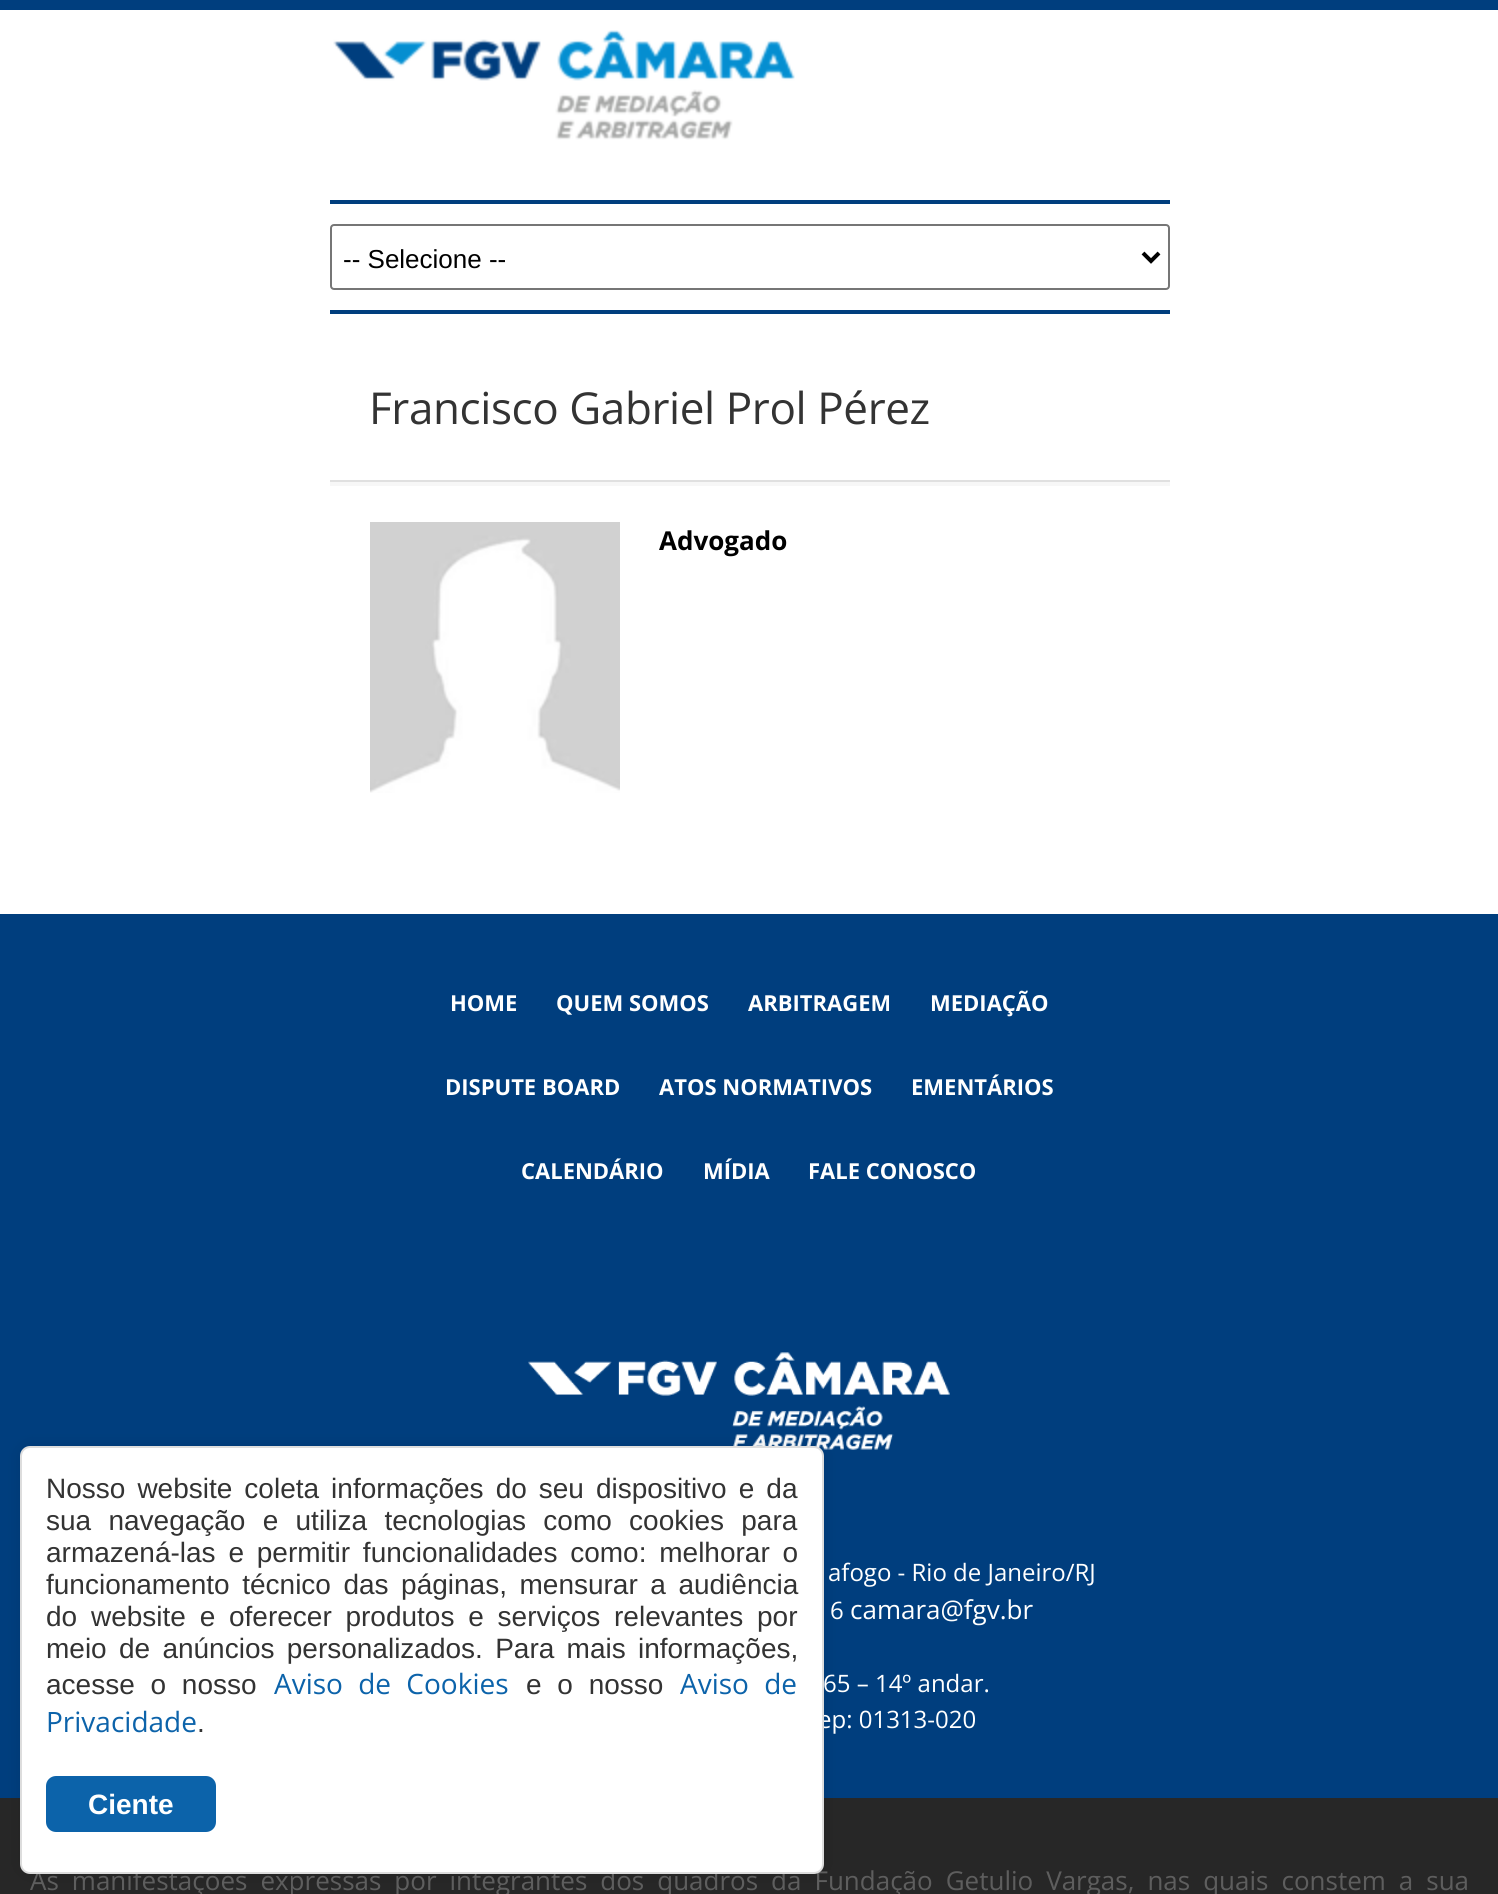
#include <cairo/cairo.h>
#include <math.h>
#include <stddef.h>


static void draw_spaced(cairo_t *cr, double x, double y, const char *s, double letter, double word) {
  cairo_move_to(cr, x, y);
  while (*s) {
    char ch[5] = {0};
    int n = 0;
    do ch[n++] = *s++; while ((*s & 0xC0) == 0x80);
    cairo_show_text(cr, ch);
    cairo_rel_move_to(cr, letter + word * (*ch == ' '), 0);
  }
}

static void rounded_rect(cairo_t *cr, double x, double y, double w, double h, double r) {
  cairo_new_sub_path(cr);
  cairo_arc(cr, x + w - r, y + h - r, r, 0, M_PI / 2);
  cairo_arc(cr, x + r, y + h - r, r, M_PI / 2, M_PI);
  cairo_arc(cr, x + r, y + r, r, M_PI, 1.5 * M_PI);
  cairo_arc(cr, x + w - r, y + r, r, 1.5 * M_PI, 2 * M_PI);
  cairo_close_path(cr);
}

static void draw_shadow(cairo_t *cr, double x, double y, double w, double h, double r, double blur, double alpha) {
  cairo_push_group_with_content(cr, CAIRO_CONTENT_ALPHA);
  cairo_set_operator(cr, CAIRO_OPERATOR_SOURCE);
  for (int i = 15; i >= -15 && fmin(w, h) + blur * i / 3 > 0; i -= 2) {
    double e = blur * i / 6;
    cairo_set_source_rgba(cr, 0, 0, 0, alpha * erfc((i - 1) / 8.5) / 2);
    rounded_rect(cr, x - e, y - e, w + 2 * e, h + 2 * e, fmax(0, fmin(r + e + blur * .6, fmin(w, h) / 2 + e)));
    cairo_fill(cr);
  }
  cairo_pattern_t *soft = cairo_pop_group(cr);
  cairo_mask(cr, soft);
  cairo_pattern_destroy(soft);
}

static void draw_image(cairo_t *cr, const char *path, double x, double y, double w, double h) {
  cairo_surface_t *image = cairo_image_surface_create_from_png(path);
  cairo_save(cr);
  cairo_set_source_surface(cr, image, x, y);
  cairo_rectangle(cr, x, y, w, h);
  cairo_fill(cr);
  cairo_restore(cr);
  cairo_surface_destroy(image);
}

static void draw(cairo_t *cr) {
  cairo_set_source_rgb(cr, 1, 1, 1);
  cairo_paint(cr);
  cairo_set_source_rgb(cr, 0, 62 / 255.0, 126 / 255.0);
  cairo_rectangle(cr, 0, 0, 1498, 10);
  cairo_fill(cr);
  draw_image(cr, "images/1.png", 333, 30, 462, 110);
  cairo_rectangle(cr, 330, 200, 840, 4);
  cairo_fill(cr);
  cairo_rectangle(cr, 330, 310, 840, 4);
  cairo_fill(cr);
  rounded_rect(cr, 331, 225, 838, 64, 3);
  cairo_set_source_rgb(cr, 118 / 255.0, 118 / 255.0, 118 / 255.0);
  cairo_stroke(cr);
  cairo_new_path(cr);
  cairo_move_to(cr, 1143, 253);
  cairo_line_to(cr, 1151, 261);
  cairo_line_to(cr, 1159, 253);
  cairo_set_source_rgb(cr, 0, 0, 0);
  cairo_set_line_width(cr, 4);
  cairo_stroke(cr);
  cairo_set_source_rgb(cr, 247 / 255.0, 247 / 255.0, 247 / 255.0);
  cairo_rectangle(cr, 330, 482, 840, 4);
  cairo_fill(cr);
  cairo_set_source_rgb(cr, 224 / 255.0, 224 / 255.0, 224 / 255.0);
  cairo_rectangle(cr, 330, 480, 840, 2);
  cairo_fill(cr);
  draw_image(cr, "images/2.png", 370, 522, 250, 271);
  cairo_set_source_rgb(cr, 0, 62 / 255.0, 126 / 255.0);
  cairo_rectangle(cr, 0, 914, 1498, 884);
  cairo_fill(cr);
  draw_image(cr, "images/3.png", 528, 1352, 422, 98);
  cairo_set_source_rgb(cr, 39 / 255.0, 39 / 255.0, 39 / 255.0);
  cairo_rectangle(cr, 0, 1798, 1498, 96);
  cairo_fill(cr);
  cairo_set_source_rgb(cr, 0, 0, 0);
  draw_shadow(cr, 20, 1446, 804, 428, 10, 8, 0.1);
  cairo_select_font_face(cr, "Liberation Sans", CAIRO_FONT_SLANT_NORMAL, CAIRO_FONT_WEIGHT_NORMAL);
  cairo_set_font_size(cr, 26);
  cairo_set_source_rgb(cr, 0, 0, 0);
  cairo_move_to(cr, 343, 268);
  cairo_show_text(cr, "-- Selecione --");
  cairo_select_font_face(cr, "Open Sans", CAIRO_FONT_SLANT_NORMAL, CAIRO_FONT_WEIGHT_NORMAL);
  cairo_set_font_size(cr, 44);
  cairo_set_source_rgb(cr, 51 / 255.0, 51 / 255.0, 51 / 255.0);
  draw_spaced(cr, 369, 424, "Francisco Gabriel Prol Pérez", -0.4, 0);
  cairo_select_font_face(cr, "Open Sans", CAIRO_FONT_SLANT_NORMAL, CAIRO_FONT_WEIGHT_BOLD);
  cairo_set_font_size(cr, 26);
  cairo_set_source_rgb(cr, 0, 0, 0);
  cairo_move_to(cr, 659, 550);
  cairo_show_text(cr, "Advogado");
  cairo_set_font_size(cr, 22);
  cairo_set_source_rgb(cr, 1, 1, 1);
  cairo_move_to(cr, 450, 1011);
  cairo_show_text(cr, "HOME");
  cairo_move_to(cr, 556, 1011);
  cairo_show_text(cr, "QUEM SOMOS");
  cairo_move_to(cr, 748, 1011);
  cairo_show_text(cr, "ARBITRAGEM");
  cairo_move_to(cr, 930, 1011);
  cairo_show_text(cr, "MEDIAÇÃO");
  cairo_move_to(cr, 445, 1095);
  cairo_show_text(cr, "DISPUTE BOARD");
  cairo_move_to(cr, 659, 1095);
  cairo_show_text(cr, "ATOS NORMATIVOS");
  cairo_move_to(cr, 911, 1095);
  cairo_show_text(cr, "EMENTÁRIOS");
  cairo_move_to(cr, 521, 1179);
  cairo_show_text(cr, "CALENDÁRIO");
  cairo_move_to(cr, 703, 1179);
  cairo_show_text(cr, "MÍDIA");
  cairo_move_to(cr, 808, 1179);
  cairo_show_text(cr, "FALE CONOSCO");
  cairo_select_font_face(cr, "Open Sans", CAIRO_FONT_SLANT_NORMAL, CAIRO_FONT_WEIGHT_NORMAL);
  cairo_set_font_size(cr, 24);
  cairo_move_to(cr, 828, 1581);
  cairo_show_text(cr, "afogo - Rio de Janeiro/RJ");
  cairo_move_to(cr, 830, 1619);
  cairo_show_text(cr, "6");
  cairo_set_font_size(cr, 26);
  cairo_move_to(cr, 850, 1619);
  cairo_show_text(cr, "camara@fgv.br");
  cairo_set_font_size(cr, 24);
  cairo_move_to(cr, 823, 1692);
  cairo_show_text(cr, "65 – 14º andar.");
  cairo_move_to(cr, 818, 1728);
  cairo_show_text(cr, "ep: 01313-020");
  cairo_set_font_size(cr, 26);
  cairo_set_source_rgb(cr, 94 / 255.0, 94 / 255.0, 94 / 255.0);
  draw_spaced(cr, 30, 1890, "As manifestações expressas por integrantes dos quadros da Fundação Getulio Vargas, nas quais constem a sua", 0, 6.25);
  cairo_set_source_rgb(cr, 1, 1, 1);
  rounded_rect(cr, 21, 1447, 802, 426, 9);
  cairo_fill_preserve(cr);
  cairo_set_source_rgb(cr, 221 / 255.0, 221 / 255.0, 221 / 255.0);
  cairo_set_line_width(cr, 2);
  cairo_stroke(cr);
  cairo_set_source_rgb(cr, 12 / 255.0, 99 / 255.0, 170 / 255.0);
  rounded_rect(cr, 46, 1776, 170, 56, 10);
  cairo_fill(cr);
  cairo_select_font_face(cr, "Liberation Sans", CAIRO_FONT_SLANT_NORMAL, CAIRO_FONT_WEIGHT_BOLD);
  cairo_set_font_size(cr, 28);
  cairo_set_source_rgb(cr, 1, 1, 1);
  cairo_move_to(cr, 88, 1814);
  cairo_show_text(cr, "Ciente");
  cairo_select_font_face(cr, "Liberation Sans", CAIRO_FONT_SLANT_NORMAL, CAIRO_FONT_WEIGHT_NORMAL);
  cairo_set_source_rgb(cr, 51 / 255.0, 51 / 255.0, 51 / 255.0);
  cairo_move_to(cr, 197, 1732);
  cairo_show_text(cr, ".");
  cairo_select_font_face(cr, "Open Sans", CAIRO_FONT_SLANT_NORMAL, CAIRO_FONT_WEIGHT_NORMAL);
  cairo_set_source_rgb(cr, 12 / 255.0, 99 / 255.0, 170 / 255.0);
  cairo_move_to(cr, 46, 1732);
  cairo_show_text(cr, "Privacidade");
  draw_spaced(cr, 680, 1694, "Aviso de", 0, 8);
  cairo_select_font_face(cr, "Liberation Sans", CAIRO_FONT_SLANT_NORMAL, CAIRO_FONT_WEIGHT_NORMAL);
  cairo_set_source_rgb(cr, 51 / 255.0, 51 / 255.0, 51 / 255.0);
  draw_spaced(cr, 526, 1694, "e o nosso", 0, 8);
  cairo_select_font_face(cr, "Open Sans", CAIRO_FONT_SLANT_NORMAL, CAIRO_FONT_WEIGHT_NORMAL);
  cairo_set_source_rgb(cr, 12 / 255.0, 99 / 255.0, 170 / 255.0);
  draw_spaced(cr, 274, 1694, "Aviso de Cookies", 0, 8);
  cairo_select_font_face(cr, "Liberation Sans", CAIRO_FONT_SLANT_NORMAL, CAIRO_FONT_WEIGHT_NORMAL);
  cairo_set_source_rgb(cr, 51 / 255.0, 51 / 255.0, 51 / 255.0);
  draw_spaced(cr, 46, 1694, "acesse o nosso", 0, 8);
  draw_spaced(cr, 46, 1658, "meio de anúncios personalizados. Para mais informações,", 0, 4.5);
  draw_spaced(cr, 46, 1626, "do website e oferecer produtos e serviços relevantes por", 0, 6);
  draw_spaced(cr, 46, 1594, "funcionamento técnico das páginas, mensurar a audiência", 0, 4.75);
  draw_spaced(cr, 46, 1562, "armazená-las e permitir funcionalidades como: melhorar o", 0, 5);
  draw_spaced(cr, 46, 1530, "sua navegação e utiliza tecnologias como cookies para", 0, 9.5);
  draw_spaced(cr, 46, 1498, "Nosso website coleta informações do seu dispositivo e da", 0, 4.25);
}

int main(void) {
  cairo_surface_t *surface = cairo_image_surface_create(CAIRO_FORMAT_RGB24, 1498, 1894);
  cairo_t *cr = cairo_create(surface);
  cairo_font_options_t *options = cairo_font_options_create();
  cairo_font_options_set_hint_metrics(options, CAIRO_HINT_METRICS_OFF);
  cairo_font_options_set_hint_style(options, CAIRO_HINT_STYLE_NONE);
  cairo_set_font_options(cr, options);
  cairo_set_miter_limit(cr, 4);
  draw(cr);
  cairo_surface_write_to_png(surface, "out.png");
  cairo_font_options_destroy(options);
  cairo_destroy(cr);
  cairo_surface_destroy(surface);
  return 0;
}
